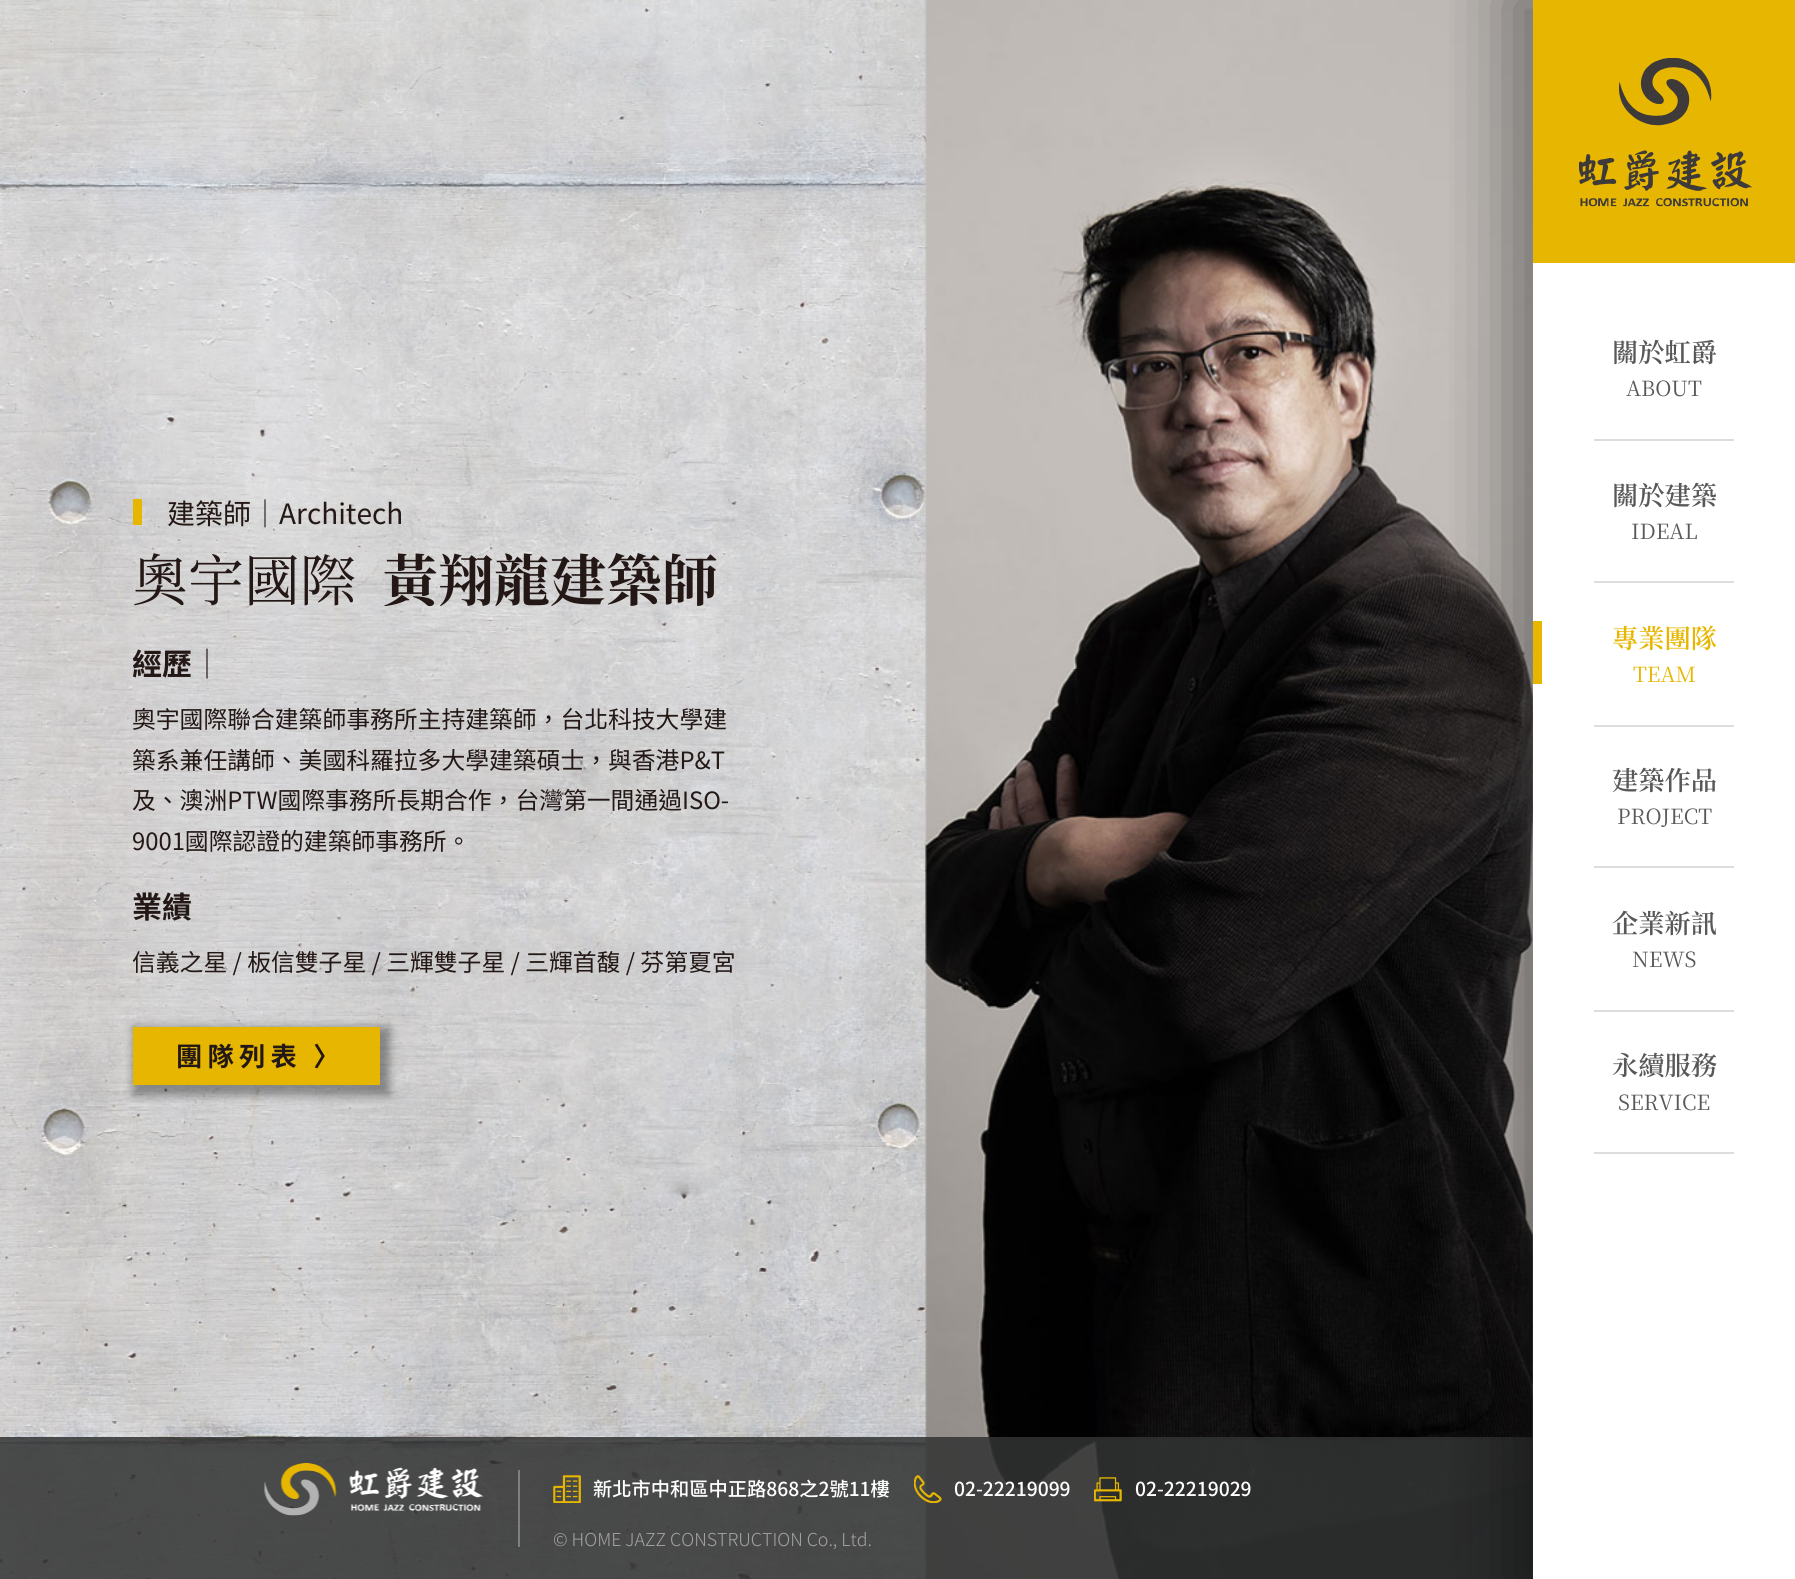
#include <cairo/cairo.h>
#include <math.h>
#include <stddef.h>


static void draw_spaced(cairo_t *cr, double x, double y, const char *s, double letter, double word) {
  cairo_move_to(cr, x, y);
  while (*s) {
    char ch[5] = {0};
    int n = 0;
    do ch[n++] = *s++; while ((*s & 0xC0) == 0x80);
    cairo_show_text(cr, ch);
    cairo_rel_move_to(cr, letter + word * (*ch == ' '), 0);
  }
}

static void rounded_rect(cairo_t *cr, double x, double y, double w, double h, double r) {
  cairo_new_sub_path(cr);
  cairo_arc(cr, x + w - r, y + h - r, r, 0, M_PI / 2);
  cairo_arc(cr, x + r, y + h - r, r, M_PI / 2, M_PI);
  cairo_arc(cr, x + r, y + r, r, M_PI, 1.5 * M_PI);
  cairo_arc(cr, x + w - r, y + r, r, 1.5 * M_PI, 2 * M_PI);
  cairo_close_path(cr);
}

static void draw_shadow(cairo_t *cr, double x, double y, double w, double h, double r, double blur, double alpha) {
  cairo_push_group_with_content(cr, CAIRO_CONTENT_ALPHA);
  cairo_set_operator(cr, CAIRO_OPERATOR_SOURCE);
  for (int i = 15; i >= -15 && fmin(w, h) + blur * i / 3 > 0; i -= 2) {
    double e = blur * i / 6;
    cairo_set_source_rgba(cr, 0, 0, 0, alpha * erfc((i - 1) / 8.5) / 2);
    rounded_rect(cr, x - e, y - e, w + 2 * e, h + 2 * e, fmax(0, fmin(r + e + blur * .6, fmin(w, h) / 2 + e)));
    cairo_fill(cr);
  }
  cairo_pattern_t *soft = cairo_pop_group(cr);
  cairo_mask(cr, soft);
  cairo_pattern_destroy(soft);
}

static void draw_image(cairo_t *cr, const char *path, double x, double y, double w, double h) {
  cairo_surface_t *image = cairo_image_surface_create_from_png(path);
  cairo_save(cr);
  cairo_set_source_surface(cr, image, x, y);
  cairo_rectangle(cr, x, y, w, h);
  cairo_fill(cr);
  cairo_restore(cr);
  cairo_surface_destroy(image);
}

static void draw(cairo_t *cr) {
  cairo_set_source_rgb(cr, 1, 1, 1);
  cairo_paint(cr);
  draw_image(cr, "images/1.png", 0, 0, 1533, 1579);
  cairo_set_source_rgb(cr, 230 / 255.0, 182 / 255.0, 0);
  cairo_rectangle(cr, 133, 499, 9, 26);
  cairo_fill(cr);
  cairo_set_source_rgb(cr, 0, 0, 0);
  draw_shadow(cr, 133, 1027, 257, 69, 0, 4.5, 0.35);
  cairo_set_source_rgb(cr, 230 / 255.0, 182 / 255.0, 0);
  cairo_rectangle(cr, 133, 1027, 247, 58);
  cairo_fill(cr);
  draw_image(cr, "images/2.png", 925, 0, 608, 1579);
  cairo_set_source_rgba(cr, 50 / 255.0, 51 / 255.0, 51 / 255.0, 0.85);
  cairo_rectangle(cr, 0, 1437, 1533, 142);
  cairo_fill(cr);
  cairo_save(cr);
  cairo_rectangle(cr, 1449, 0, 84, 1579);
  cairo_clip(cr);
  cairo_set_source_rgb(cr, 0, 0, 0);
  draw_shadow(cr, 1507, -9, 280, 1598, 0, 35, 0.4);
  cairo_restore(cr);
  cairo_set_source_rgb(cr, 230 / 255.0, 182 / 255.0, 0);
  cairo_rectangle(cr, 1533, 0, 262, 263);
  cairo_fill(cr);
  draw_image(cr, "images/3.png", 1579, 58, 173, 149);
  cairo_set_source_rgb(cr, 222 / 255.0, 221 / 255.0, 221 / 255.0);
  cairo_rectangle(cr, 1594, 439, 140, 2);
  cairo_fill(cr);
  cairo_rectangle(cr, 1594, 581, 140, 2);
  cairo_fill(cr);
  cairo_set_source_rgb(cr, 230 / 255.0, 182 / 255.0, 0);
  cairo_rectangle(cr, 1533, 621, 9, 63);
  cairo_fill(cr);
  cairo_set_source_rgb(cr, 222 / 255.0, 221 / 255.0, 221 / 255.0);
  cairo_rectangle(cr, 1594, 725, 140, 2);
  cairo_fill(cr);
  cairo_rectangle(cr, 1594, 866, 140, 2);
  cairo_fill(cr);
  cairo_rectangle(cr, 1594, 1010, 140, 2);
  cairo_fill(cr);
  cairo_rectangle(cr, 1594, 1152, 140, 2);
  cairo_fill(cr);
  draw_image(cr, "images/4.png", 264, 1463, 220, 53);
  cairo_set_source_rgba(cr, 1, 1, 1, 0.3);
  cairo_rectangle(cr, 518, 1470, 2, 77);
  cairo_fill(cr);
  draw_image(cr, "images/5.png", 553, 1475, 28, 28);
  draw_image(cr, "images/6.png", 914, 1475, 28, 28);
  draw_image(cr, "images/7.png", 1094, 1477, 28, 25);
  cairo_select_font_face(cr, "Noto Sans TC", CAIRO_FONT_SLANT_NORMAL, CAIRO_FONT_WEIGHT_NORMAL);
  cairo_set_font_size(cr, 28);
  cairo_set_source_rgb(cr, 35 / 255.0, 24 / 255.0, 21 / 255.0);
  cairo_move_to(cr, 167, 524);
  cairo_show_text(cr, "建築師│Architech");
  cairo_select_font_face(cr, "Noto Serif TC", CAIRO_FONT_SLANT_NORMAL, CAIRO_FONT_WEIGHT_NORMAL);
  cairo_set_font_size(cr, 56);
  cairo_move_to(cr, 132, 601);
  cairo_show_text(cr, "奧宇國際");
  cairo_select_font_face(cr, "Noto Serif TC", CAIRO_FONT_SLANT_NORMAL, CAIRO_FONT_WEIGHT_BOLD);
  cairo_move_to(cr, 382, 601);
  cairo_show_text(cr, "黃翔龍建築師");
  cairo_select_font_face(cr, "Noto Sans TC", CAIRO_FONT_SLANT_NORMAL, CAIRO_FONT_WEIGHT_BOLD);
  cairo_set_font_size(cr, 30);
  cairo_move_to(cr, 132, 675);
  cairo_show_text(cr, "經歷│");
  cairo_select_font_face(cr, "Noto Sans TC", CAIRO_FONT_SLANT_NORMAL, CAIRO_FONT_WEIGHT_NORMAL);
  cairo_set_font_size(cr, 23.8);
  cairo_move_to(cr, 132, 728);
  cairo_show_text(cr, "奧宇國際聯合建築師事務所主持建築師，台北科技大學建");
  cairo_move_to(cr, 132, 769);
  cairo_show_text(cr, "築系兼任講師、美國科羅拉多大學建築碩士，與香港P&T");
  cairo_move_to(cr, 132, 809);
  cairo_show_text(cr, "及、澳洲PTW國際事務所長期合作，台灣第一間通過ISO-");
  cairo_move_to(cr, 132, 850);
  cairo_show_text(cr, "9001國際認證的建築師事務所。");
  cairo_select_font_face(cr, "Noto Sans TC", CAIRO_FONT_SLANT_NORMAL, CAIRO_FONT_WEIGHT_BOLD);
  cairo_set_font_size(cr, 30);
  cairo_move_to(cr, 132, 918);
  cairo_show_text(cr, "業績");
  cairo_select_font_face(cr, "Noto Sans TC", CAIRO_FONT_SLANT_NORMAL, CAIRO_FONT_WEIGHT_NORMAL);
  cairo_set_font_size(cr, 23.8);
  cairo_move_to(cr, 132, 971);
  cairo_show_text(cr, "信義之星 / 板信雙子星 / 三輝雙子星 / 三輝首馥 / 芬第夏宮");
  cairo_select_font_face(cr, "Noto Sans TC", CAIRO_FONT_SLANT_NORMAL, CAIRO_FONT_WEIGHT_BOLD);
  cairo_set_font_size(cr, 26.25);
  draw_spaced(cr, 176, 1066, "團隊列表 〉", 5.25, 0);
  cairo_select_font_face(cr, "Noto Serif TC SemiBold", CAIRO_FONT_SLANT_NORMAL, CAIRO_FONT_WEIGHT_NORMAL);
  cairo_set_source_rgb(cr, 89 / 255.0, 87 / 255.0, 87 / 255.0);
  cairo_move_to(cr, 1612, 362);
  cairo_show_text(cr, "關於虹爵");
  cairo_select_font_face(cr, "Noto Serif TC", CAIRO_FONT_SLANT_NORMAL, CAIRO_FONT_WEIGHT_NORMAL);
  cairo_set_font_size(cr, 21);
  cairo_move_to(cr, 1626, 396);
  cairo_show_text(cr, "ABOUT");
  cairo_select_font_face(cr, "Noto Serif TC SemiBold", CAIRO_FONT_SLANT_NORMAL, CAIRO_FONT_WEIGHT_NORMAL);
  cairo_set_font_size(cr, 26.25);
  cairo_move_to(cr, 1612, 505);
  cairo_show_text(cr, "關於建築");
  cairo_select_font_face(cr, "Noto Serif TC", CAIRO_FONT_SLANT_NORMAL, CAIRO_FONT_WEIGHT_NORMAL);
  cairo_set_font_size(cr, 21);
  cairo_move_to(cr, 1631, 539);
  cairo_show_text(cr, "IDEAL");
  cairo_select_font_face(cr, "Noto Serif TC SemiBold", CAIRO_FONT_SLANT_NORMAL, CAIRO_FONT_WEIGHT_NORMAL);
  cairo_set_font_size(cr, 26.25);
  cairo_set_source_rgb(cr, 230 / 255.0, 182 / 255.0, 0);
  cairo_move_to(cr, 1612, 648);
  cairo_show_text(cr, "專業團隊");
  cairo_select_font_face(cr, "Noto Serif TC", CAIRO_FONT_SLANT_NORMAL, CAIRO_FONT_WEIGHT_NORMAL);
  cairo_set_font_size(cr, 21);
  cairo_move_to(cr, 1633, 682);
  cairo_show_text(cr, "TEAM");
  cairo_select_font_face(cr, "Noto Serif TC SemiBold", CAIRO_FONT_SLANT_NORMAL, CAIRO_FONT_WEIGHT_NORMAL);
  cairo_set_font_size(cr, 26.25);
  cairo_set_source_rgb(cr, 89 / 255.0, 87 / 255.0, 87 / 255.0);
  cairo_move_to(cr, 1612, 790);
  cairo_show_text(cr, "建築作品");
  cairo_select_font_face(cr, "Noto Serif TC", CAIRO_FONT_SLANT_NORMAL, CAIRO_FONT_WEIGHT_NORMAL);
  cairo_set_font_size(cr, 21);
  cairo_move_to(cr, 1617, 824);
  cairo_show_text(cr, "PROJECT");
  cairo_select_font_face(cr, "Noto Serif TC SemiBold", CAIRO_FONT_SLANT_NORMAL, CAIRO_FONT_WEIGHT_NORMAL);
  cairo_set_font_size(cr, 26.25);
  cairo_move_to(cr, 1612, 933);
  cairo_show_text(cr, "企業新訊");
  cairo_select_font_face(cr, "Noto Serif TC", CAIRO_FONT_SLANT_NORMAL, CAIRO_FONT_WEIGHT_NORMAL);
  cairo_set_font_size(cr, 21);
  cairo_move_to(cr, 1632, 967);
  cairo_show_text(cr, "NEWS");
  cairo_select_font_face(cr, "Noto Serif TC SemiBold", CAIRO_FONT_SLANT_NORMAL, CAIRO_FONT_WEIGHT_NORMAL);
  cairo_set_font_size(cr, 26.25);
  cairo_move_to(cr, 1612, 1075);
  cairo_show_text(cr, "永續服務");
  cairo_select_font_face(cr, "Noto Serif TC", CAIRO_FONT_SLANT_NORMAL, CAIRO_FONT_WEIGHT_NORMAL);
  cairo_set_font_size(cr, 21);
  cairo_move_to(cr, 1618, 1110);
  cairo_show_text(cr, "SERVICE");
  cairo_select_font_face(cr, "Noto Sans TC Medium", CAIRO_FONT_SLANT_NORMAL, CAIRO_FONT_WEIGHT_NORMAL);
  cairo_set_font_size(cr, 19.25);
  cairo_set_source_rgb(cr, 1, 1, 1);
  cairo_move_to(cr, 593, 1496);
  cairo_show_text(cr, "新北市中和區中正路868之2號11樓");
  cairo_move_to(cr, 954, 1496);
  cairo_show_text(cr, "02-22219099");
  cairo_move_to(cr, 1135, 1496);
  cairo_show_text(cr, "02-22219029");
  cairo_select_font_face(cr, "Noto Sans TC Light", CAIRO_FONT_SLANT_NORMAL, CAIRO_FONT_WEIGHT_NORMAL);
  cairo_set_font_size(cr, 17.8);
  cairo_set_source_rgb(cr, 164 / 255.0, 164 / 255.0, 164 / 255.0);
  cairo_move_to(cr, 553, 1546);
  cairo_show_text(cr, "© HOME JAZZ CONSTRUCTION Co., Ltd.");
}

int main(void) {
  cairo_surface_t *surface = cairo_image_surface_create(CAIRO_FORMAT_RGB24, 1795, 1579);
  cairo_t *cr = cairo_create(surface);
  cairo_font_options_t *options = cairo_font_options_create();
  cairo_font_options_set_hint_metrics(options, CAIRO_HINT_METRICS_OFF);
  cairo_font_options_set_hint_style(options, CAIRO_HINT_STYLE_NONE);
  cairo_set_font_options(cr, options);
  cairo_set_miter_limit(cr, 4);
  draw(cr);
  cairo_surface_write_to_png(surface, "out.png");
  cairo_font_options_destroy(options);
  cairo_destroy(cr);
  cairo_surface_destroy(surface);
  return 0;
}
